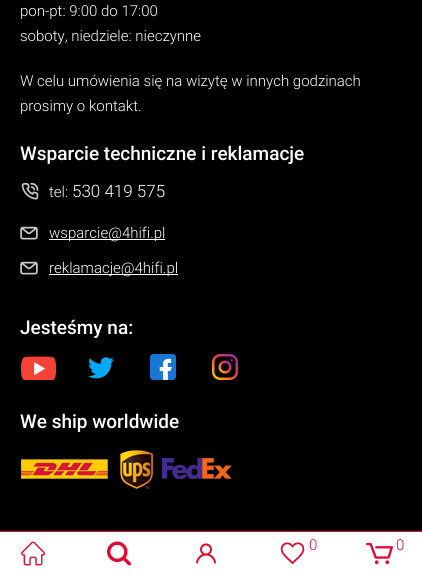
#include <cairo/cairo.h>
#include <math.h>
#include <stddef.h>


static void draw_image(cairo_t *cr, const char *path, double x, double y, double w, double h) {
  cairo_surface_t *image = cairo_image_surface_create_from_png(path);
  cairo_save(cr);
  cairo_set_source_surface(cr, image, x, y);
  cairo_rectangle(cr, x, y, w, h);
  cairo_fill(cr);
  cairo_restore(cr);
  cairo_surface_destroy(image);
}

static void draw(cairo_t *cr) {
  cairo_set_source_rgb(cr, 0, 0, 0);
  cairo_paint(cr);
  draw_image(cr, "images/1.png", 21, 182, 18, 18);
  draw_image(cr, "images/2.png", 20, 226, 18, 14);
  cairo_set_source_rgb(cr, 1, 1, 1);
  cairo_rectangle(cr, 49, 239, 116, 1);
  cairo_fill(cr);
  draw_image(cr, "images/2.png", 20, 261, 18, 14);
  cairo_rectangle(cr, 49, 274, 129, 1);
  cairo_fill(cr);
  draw_image(cr, "images/3.png", 21, 356, 36, 24);
  draw_image(cr, "images/4.png", 88, 357, 26, 22);
  draw_image(cr, "images/5.png", 150, 354, 26, 26);
  draw_image(cr, "images/6.png", 212, 354, 26, 26);
  draw_image(cr, "images/7.png", 21, 450, 211, 39);
  cairo_rectangle(cr, 0, 532, 422, 44);
  cairo_fill(cr);
  cairo_set_source_rgb(cr, 221 / 255.0, 11 / 255.0, 53 / 255.0);
  cairo_rectangle(cr, 0, 531, 422, 1);
  cairo_fill(cr);
  draw_image(cr, "images/8.png", 21, 541, 24, 25);
  draw_image(cr, "images/9.png", 107, 541, 24, 25);
  draw_image(cr, "images/10.png", 196, 543, 20, 21);
  draw_image(cr, "images/11.png", 280, 542, 25, 23);
  draw_image(cr, "images/12.png", 366, 542, 27, 23);
  cairo_select_font_face(cr, "Roboto Light", CAIRO_FONT_SLANT_NORMAL, CAIRO_FONT_WEIGHT_NORMAL);
  cairo_set_font_size(cr, 15);
  cairo_set_source_rgb(cr, 1, 1, 1);
  cairo_move_to(cr, 20, 16);
  cairo_show_text(cr, "pon-pt: 9:00 do 17:00");
  cairo_move_to(cr, 20, 41);
  cairo_show_text(cr, "soboty, niedziele: nieczynne");
  cairo_move_to(cr, 20, 86);
  cairo_show_text(cr, "W celu umówienia się na wizytę w innych godzinach");
  cairo_move_to(cr, 20, 111);
  cairo_show_text(cr, "prosimy o kontakt.");
  cairo_select_font_face(cr, "Roboto Medium", CAIRO_FONT_SLANT_NORMAL, CAIRO_FONT_WEIGHT_NORMAL);
  cairo_set_font_size(cr, 19);
  cairo_move_to(cr, 20, 160);
  cairo_show_text(cr, "Wsparcie techniczne i reklamacje");
  cairo_select_font_face(cr, "Roboto Light", CAIRO_FONT_SLANT_NORMAL, CAIRO_FONT_WEIGHT_NORMAL);
  cairo_set_font_size(cr, 15);
  cairo_move_to(cr, 49, 197);
  cairo_show_text(cr, "tel:");
  cairo_set_font_size(cr, 17);
  cairo_move_to(cr, 72, 197);
  cairo_show_text(cr, "530 419 575");
  cairo_set_font_size(cr, 15);
  cairo_move_to(cr, 49, 238);
  cairo_show_text(cr, "wsparcie@4hifi.pl");
  cairo_move_to(cr, 49, 273);
  cairo_show_text(cr, "reklamacje@4hifi.pl");
  cairo_select_font_face(cr, "Roboto Medium", CAIRO_FONT_SLANT_NORMAL, CAIRO_FONT_WEIGHT_NORMAL);
  cairo_set_font_size(cr, 19);
  cairo_move_to(cr, 20, 334);
  cairo_show_text(cr, "Jesteśmy na:");
  cairo_move_to(cr, 20, 428);
  cairo_show_text(cr, "We ship worldwide");
  cairo_select_font_face(cr, "Roboto Light", CAIRO_FONT_SLANT_NORMAL, CAIRO_FONT_WEIGHT_NORMAL);
  cairo_set_font_size(cr, 15);
  cairo_set_source_rgb(cr, 221 / 255.0, 11 / 255.0, 53 / 255.0);
  cairo_move_to(cr, 309, 550);
  cairo_show_text(cr, "0");
  cairo_move_to(cr, 396, 550);
  cairo_show_text(cr, "0");
}

int main(void) {
  cairo_surface_t *surface = cairo_image_surface_create(CAIRO_FORMAT_RGB24, 422, 576);
  cairo_t *cr = cairo_create(surface);
  cairo_font_options_t *options = cairo_font_options_create();
  cairo_font_options_set_hint_metrics(options, CAIRO_HINT_METRICS_OFF);
  cairo_font_options_set_hint_style(options, CAIRO_HINT_STYLE_NONE);
  cairo_set_font_options(cr, options);
  cairo_set_miter_limit(cr, 4);
  draw(cr);
  cairo_surface_write_to_png(surface, "out.png");
  cairo_font_options_destroy(options);
  cairo_destroy(cr);
  cairo_surface_destroy(surface);
  return 0;
}
